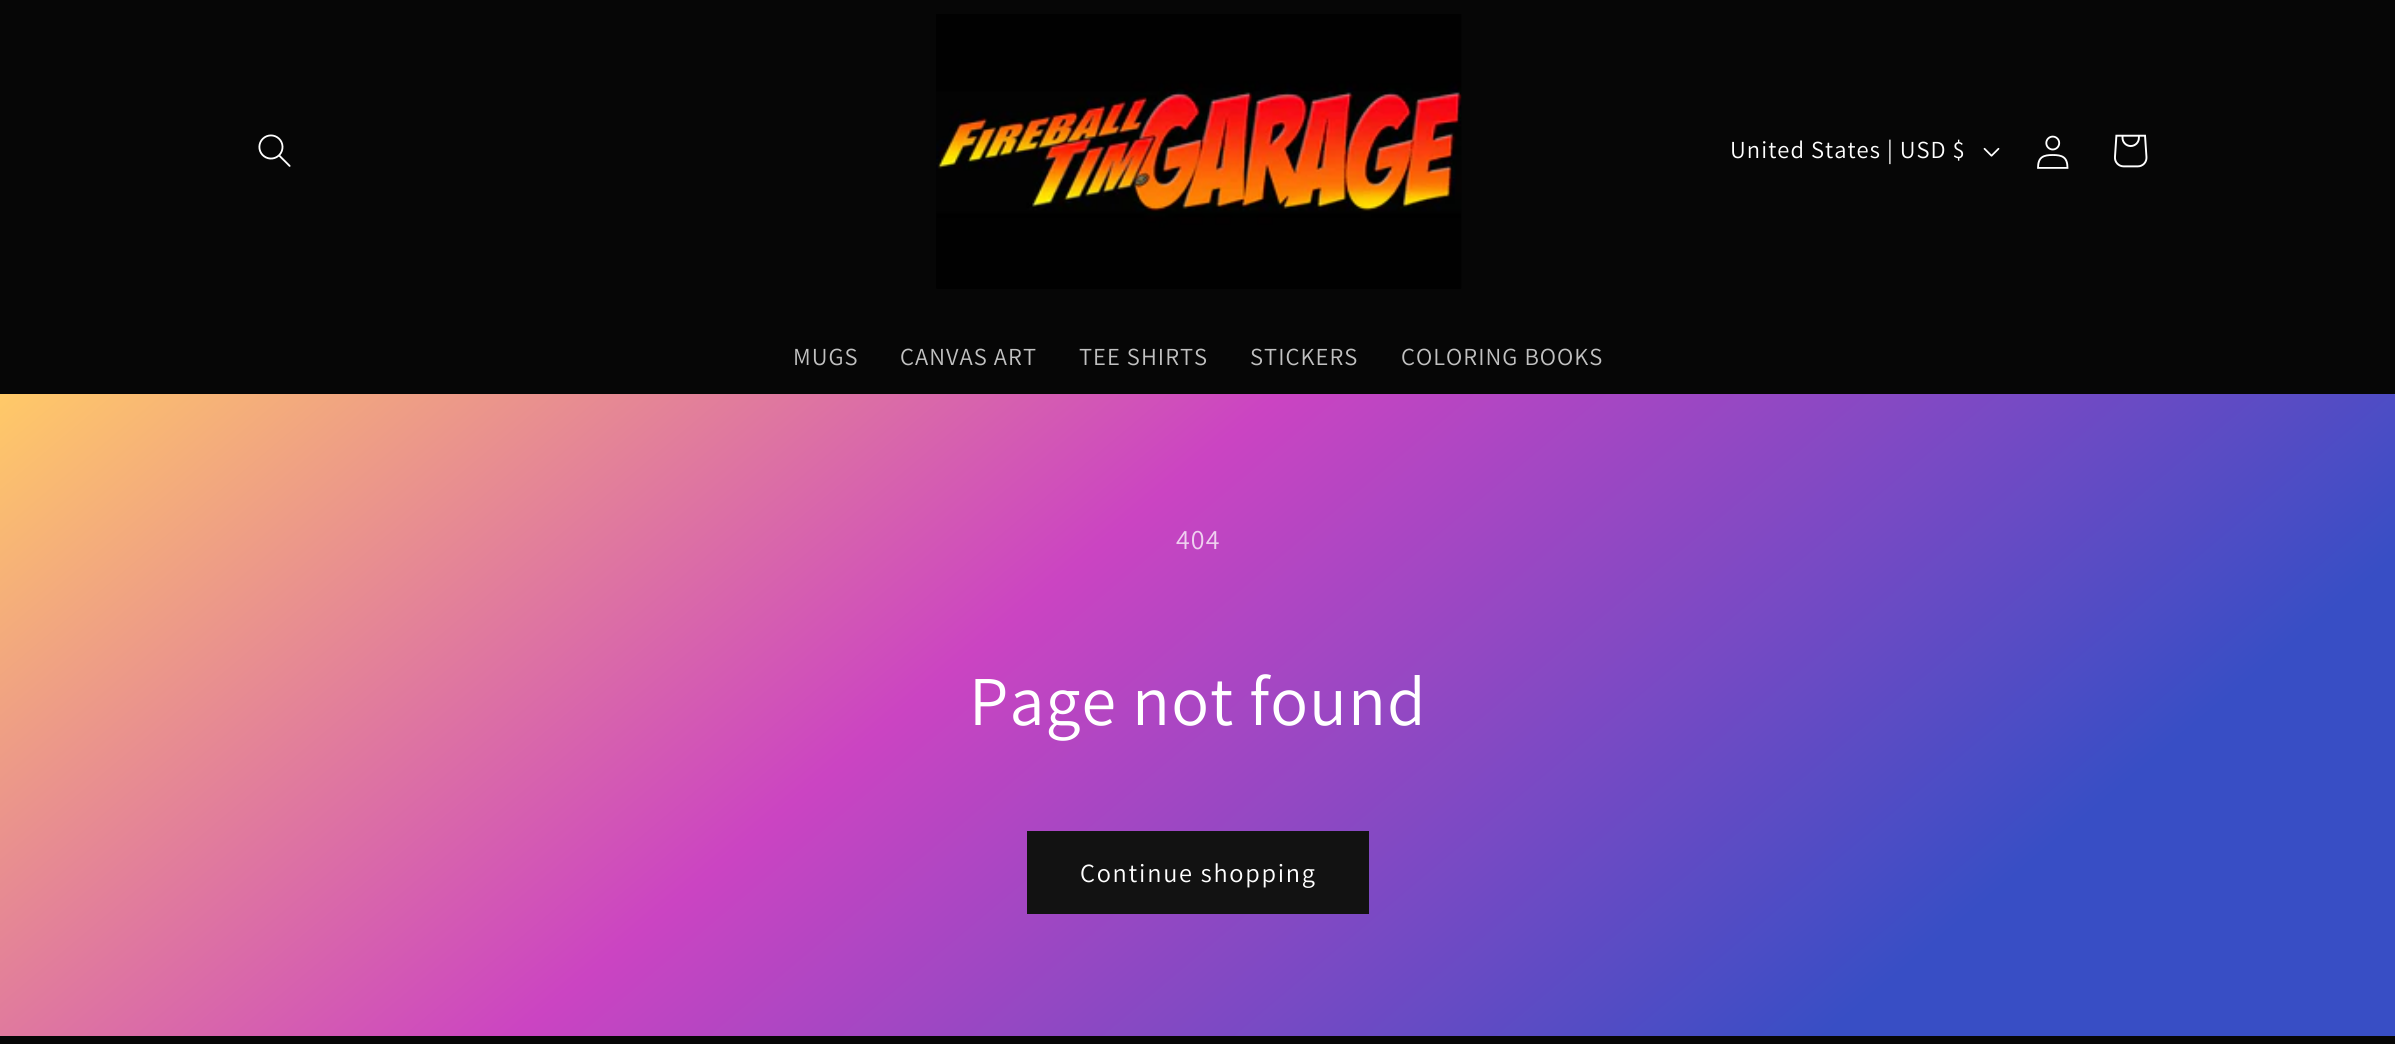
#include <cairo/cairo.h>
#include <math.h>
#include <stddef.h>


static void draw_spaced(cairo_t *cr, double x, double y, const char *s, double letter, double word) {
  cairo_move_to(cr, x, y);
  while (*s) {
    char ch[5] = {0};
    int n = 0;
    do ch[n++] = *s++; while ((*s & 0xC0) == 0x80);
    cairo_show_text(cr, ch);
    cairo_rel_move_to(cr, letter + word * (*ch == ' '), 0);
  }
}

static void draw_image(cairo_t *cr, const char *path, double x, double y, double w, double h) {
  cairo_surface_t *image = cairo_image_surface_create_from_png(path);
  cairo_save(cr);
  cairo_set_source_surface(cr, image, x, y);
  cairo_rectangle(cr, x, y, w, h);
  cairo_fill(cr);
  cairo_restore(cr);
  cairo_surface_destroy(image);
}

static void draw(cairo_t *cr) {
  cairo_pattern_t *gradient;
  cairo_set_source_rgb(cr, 1, 1, 1);
  cairo_paint(cr);
  gradient = cairo_pattern_create_linear(1950, 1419, 446, -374);
  cairo_pattern_add_color_stop_rgba(gradient, 0.16, 56 / 255.0, 78 / 255.0, 197 / 255.0, 1);
  cairo_pattern_add_color_stop_rgba(gradient, 0.52, 203 / 255.0, 68 / 255.0, 194 / 255.0, 1);
  cairo_pattern_add_color_stop_rgba(gradient, 0.87, 1, 201 / 255.0, 104 / 255.0, 1);
  cairo_set_source(cr, gradient);
  cairo_pattern_destroy(gradient);
  cairo_rectangle(cr, 0, 394, 2395, 642);
  cairo_fill(cr);
  cairo_set_source_rgb(cr, 6 / 255.0, 6 / 255.0, 6 / 255.0);
  cairo_rectangle(cr, 0, 0, 2395, 394);
  cairo_fill(cr);
  draw_image(cr, "images/1.png", 258, 134, 33, 33);
  draw_image(cr, "images/2.png", 936, 14, 526, 275);
  draw_image(cr, "images/3.png", 1983, 147, 17, 10);
  draw_image(cr, "images/4.png", 2037, 135, 32, 34);
  draw_image(cr, "images/5.png", 2114, 134, 34, 34);
  cairo_set_source_rgb(cr, 18 / 255.0, 18 / 255.0, 18 / 255.0);
  cairo_rectangle(cr, 1027, 831, 342, 83);
  cairo_fill(cr);
  cairo_set_source_rgb(cr, 6 / 255.0, 6 / 255.0, 6 / 255.0);
  cairo_rectangle(cr, 0, 1036, 2395, 8);
  cairo_fill(cr);
  cairo_select_font_face(cr, "Assistant", CAIRO_FONT_SLANT_NORMAL, CAIRO_FONT_WEIGHT_NORMAL);
  cairo_set_font_size(cr, 24.5);
  cairo_set_source_rgb(cr, 1, 1, 1);
  draw_spaced(cr, 1730, 158, "United States | USD $", 1.05, 0);
  cairo_set_source_rgb(cr, 193 / 255.0, 193 / 255.0, 193 / 255.0);
  draw_spaced(cr, 793, 365, "MUGS", 1.05, 0);
  draw_spaced(cr, 900, 365, "CANVAS ART", 1.05, 0);
  draw_spaced(cr, 1079, 365, "TEE SHIRTS", 1.05, 0);
  draw_spaced(cr, 1250, 365, "STICKERS", 1.05, 0);
  draw_spaced(cr, 1401, 365, "COLORING BOOKS", 1.05, 0);
  cairo_set_font_size(cr, 28);
  cairo_set_source_rgb(cr, 239 / 255.0, 209 / 255.0, 240 / 255.0);
  draw_spaced(cr, 1176, 549, "404", 1.05, 0);
  cairo_set_font_size(cr, 70);
  cairo_set_source_rgb(cr, 1, 1, 1);
  draw_spaced(cr, 969, 725, "Page not found", 1.05, 0);
  cairo_set_font_size(cr, 26.25);
  draw_spaced(cr, 1080, 882, "Continue shopping", 1.75, 0);
}

int main(void) {
  cairo_surface_t *surface = cairo_image_surface_create(CAIRO_FORMAT_RGB24, 2395, 1044);
  cairo_t *cr = cairo_create(surface);
  cairo_font_options_t *options = cairo_font_options_create();
  cairo_font_options_set_hint_metrics(options, CAIRO_HINT_METRICS_OFF);
  cairo_font_options_set_hint_style(options, CAIRO_HINT_STYLE_NONE);
  cairo_set_font_options(cr, options);
  cairo_set_miter_limit(cr, 4);
  draw(cr);
  cairo_surface_write_to_png(surface, "out.png");
  cairo_font_options_destroy(options);
  cairo_destroy(cr);
  cairo_surface_destroy(surface);
  return 0;
}
